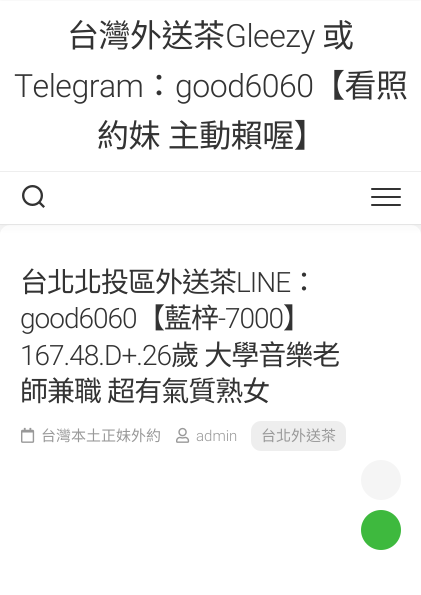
#include <cairo/cairo.h>
#include <math.h>
#include <stddef.h>


static void draw_spaced(cairo_t *cr, double x, double y, const char *s, double letter, double word) {
  cairo_move_to(cr, x, y);
  while (*s) {
    char ch[5] = {0};
    int n = 0;
    do ch[n++] = *s++; while ((*s & 0xC0) == 0x80);
    cairo_show_text(cr, ch);
    cairo_rel_move_to(cr, letter + word * (*ch == ' '), 0);
  }
}

static void rounded_rect(cairo_t *cr, double x, double y, double w, double h, double r) {
  cairo_new_sub_path(cr);
  cairo_arc(cr, x + w - r, y + h - r, r, 0, M_PI / 2);
  cairo_arc(cr, x + r, y + h - r, r, M_PI / 2, M_PI);
  cairo_arc(cr, x + r, y + r, r, M_PI, 1.5 * M_PI);
  cairo_arc(cr, x + w - r, y + r, r, 1.5 * M_PI, 2 * M_PI);
  cairo_close_path(cr);
}

static void draw_shadow(cairo_t *cr, double x, double y, double w, double h, double r, double blur, double alpha) {
  cairo_push_group_with_content(cr, CAIRO_CONTENT_ALPHA);
  cairo_set_operator(cr, CAIRO_OPERATOR_SOURCE);
  for (int i = 15; i >= -15 && fmin(w, h) + blur * i / 3 > 0; i -= 2) {
    double e = blur * i / 6;
    cairo_set_source_rgba(cr, 0, 0, 0, alpha * erfc((i - 1) / 8.5) / 2);
    rounded_rect(cr, x - e, y - e, w + 2 * e, h + 2 * e, fmax(0, fmin(r + e + blur * .6, fmin(w, h) / 2 + e)));
    cairo_fill(cr);
  }
  cairo_pattern_t *soft = cairo_pop_group(cr);
  cairo_mask(cr, soft);
  cairo_pattern_destroy(soft);
}

static void draw_image(cairo_t *cr, const char *path, double x, double y, double w, double h) {
  cairo_surface_t *image = cairo_image_surface_create_from_png(path);
  cairo_save(cr);
  cairo_set_source_surface(cr, image, x, y);
  cairo_rectangle(cr, x, y, w, h);
  cairo_fill(cr);
  cairo_restore(cr);
  cairo_surface_destroy(image);
}

static void draw(cairo_t *cr) {
  cairo_set_source_rgb(cr, 245 / 255.0, 245 / 255.0, 245 / 255.0);
  cairo_paint(cr);
  cairo_set_source_rgb(cr, 1, 1, 1);
  cairo_rectangle(cr, 0, 0, 421, 1);
  cairo_fill(cr);
  rounded_rect(cr, 0, 225, 421, 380, 10);
  cairo_fill(cr);
  cairo_set_source_rgb(cr, 0, 0, 0);
  draw_shadow(cr, 0, 1, 421, 224, 0, 5, 0.05);
  cairo_set_source_rgb(cr, 1, 1, 1);
  cairo_rectangle(cr, 0, 1, 421, 223);
  cairo_fill(cr);
  cairo_set_source_rgb(cr, 229 / 255.0, 229 / 255.0, 229 / 255.0);
  cairo_rectangle(cr, 0, 224, 421, 1);
  cairo_fill(cr);
  cairo_set_source_rgb(cr, 238 / 255.0, 238 / 255.0, 238 / 255.0);
  cairo_rectangle(cr, 0, 171, 421, 1);
  cairo_fill(cr);
  cairo_set_source_rgb(cr, 51 / 255.0, 51 / 255.0, 51 / 255.0);
  rounded_rect(cr, 371, 188, 30, 2, 1);
  cairo_fill(cr);
  rounded_rect(cr, 371, 196, 30, 2, 1);
  cairo_fill(cr);
  rounded_rect(cr, 371, 204, 30, 2, 1);
  cairo_fill(cr);
  draw_image(cr, "images/1.png", 22, 185, 23, 23);
  draw_image(cr, "images/2.png", 21, 427, 14, 16);
  draw_image(cr, "images/3.png", 176, 427, 14, 16);
  cairo_set_source_rgb(cr, 238 / 255.0, 238 / 255.0, 238 / 255.0);
  rounded_rect(cr, 251, 421, 95, 30, 10);
  cairo_fill(cr);
  cairo_set_source_rgb(cr, 245 / 255.0, 245 / 255.0, 245 / 255.0);
  cairo_arc(cr, 381, 480, 20, 0, 2 * M_PI);
  cairo_fill(cr);
  cairo_set_source_rgb(cr, 62 / 255.0, 185 / 255.0, 62 / 255.0);
  cairo_arc(cr, 381, 530, 20, 0, 2 * M_PI);
  cairo_fill(cr);
  cairo_select_font_face(cr, "Noto Sans CJK TC", CAIRO_FONT_SLANT_NORMAL, CAIRO_FONT_WEIGHT_NORMAL);
  cairo_set_font_size(cr, 32);
  cairo_set_source_rgb(cr, 51 / 255.0, 51 / 255.0, 51 / 255.0);
  draw_spaced(cr, 67, 47, "台灣外送茶", -0.5, 0);
  cairo_select_font_face(cr, "Roboto Light", CAIRO_FONT_SLANT_NORMAL, CAIRO_FONT_WEIGHT_NORMAL);
  draw_spaced(cr, 225, 47, "Gleezy", -0.5, 0);
  cairo_select_font_face(cr, "Noto Sans CJK TC", CAIRO_FONT_SLANT_NORMAL, CAIRO_FONT_WEIGHT_NORMAL);
  draw_spaced(cr, 322, 47, "或", -0.5, 0);
  cairo_select_font_face(cr, "Roboto Light", CAIRO_FONT_SLANT_NORMAL, CAIRO_FONT_WEIGHT_NORMAL);
  draw_spaced(cr, 14, 97, "Telegram", -0.5, 0);
  cairo_select_font_face(cr, "Noto Sans CJK TC", CAIRO_FONT_SLANT_NORMAL, CAIRO_FONT_WEIGHT_NORMAL);
  draw_spaced(cr, 143, 97, "：", -0.5, 0);
  cairo_select_font_face(cr, "Roboto Light", CAIRO_FONT_SLANT_NORMAL, CAIRO_FONT_WEIGHT_NORMAL);
  draw_spaced(cr, 175, 97, "good6060", -0.5, 0);
  cairo_select_font_face(cr, "Noto Sans CJK TC", CAIRO_FONT_SLANT_NORMAL, CAIRO_FONT_WEIGHT_NORMAL);
  draw_spaced(cr, 313, 97, "【看照", -0.5, 0);
  draw_spaced(cr, 97, 147, "約妹 主動賴喔】", -0.5, 1);
  cairo_set_font_size(cr, 28);
  draw_spaced(cr, 20, 292, "台北北投區外送茶", -1, 0);
  cairo_select_font_face(cr, "Roboto Light", CAIRO_FONT_SLANT_NORMAL, CAIRO_FONT_WEIGHT_NORMAL);
  draw_spaced(cr, 236, 292, "LINE", -1, 0);
  cairo_select_font_face(cr, "Noto Sans CJK TC", CAIRO_FONT_SLANT_NORMAL, CAIRO_FONT_WEIGHT_NORMAL);
  draw_spaced(cr, 290, 292, "：", -1, 0);
  cairo_select_font_face(cr, "Roboto Light", CAIRO_FONT_SLANT_NORMAL, CAIRO_FONT_WEIGHT_NORMAL);
  draw_spaced(cr, 20, 328, "good6060", -1, 0);
  cairo_select_font_face(cr, "Noto Sans CJK TC", CAIRO_FONT_SLANT_NORMAL, CAIRO_FONT_WEIGHT_NORMAL);
  draw_spaced(cr, 137, 328, "【藍梓", -1, 0);
  cairo_select_font_face(cr, "Roboto Light", CAIRO_FONT_SLANT_NORMAL, CAIRO_FONT_WEIGHT_NORMAL);
  draw_spaced(cr, 218, 328, "-7000", -1, 0);
  cairo_select_font_face(cr, "Noto Sans CJK TC", CAIRO_FONT_SLANT_NORMAL, CAIRO_FONT_WEIGHT_NORMAL);
  draw_spaced(cr, 283, 328, "】", -1, 0);
  cairo_select_font_face(cr, "Roboto Light", CAIRO_FONT_SLANT_NORMAL, CAIRO_FONT_WEIGHT_NORMAL);
  draw_spaced(cr, 20, 365, "167.48.D+.26", -1, 0);
  cairo_select_font_face(cr, "Noto Sans CJK TC", CAIRO_FONT_SLANT_NORMAL, CAIRO_FONT_WEIGHT_NORMAL);
  draw_spaced(cr, 171, 365, "歲 大學音樂老", -1, 1);
  draw_spaced(cr, 20, 401, "師兼職 超有氣質熟女", -1, 1);
  cairo_set_font_size(cr, 15);
  cairo_set_source_rgb(cr, 153 / 255.0, 153 / 255.0, 153 / 255.0);
  cairo_move_to(cr, 41, 441);
  cairo_show_text(cr, "台灣本土正妹外約");
  cairo_select_font_face(cr, "Roboto Light", CAIRO_FONT_SLANT_NORMAL, CAIRO_FONT_WEIGHT_NORMAL);
  cairo_move_to(cr, 196, 441);
  cairo_show_text(cr, "admin");
  cairo_select_font_face(cr, "Noto Sans CJK TC", CAIRO_FONT_SLANT_NORMAL, CAIRO_FONT_WEIGHT_NORMAL);
  cairo_move_to(cr, 261, 441);
  cairo_show_text(cr, "台北外送茶");
}

int main(void) {
  cairo_surface_t *surface = cairo_image_surface_create(CAIRO_FORMAT_RGB24, 421, 595);
  cairo_t *cr = cairo_create(surface);
  cairo_font_options_t *options = cairo_font_options_create();
  cairo_font_options_set_hint_metrics(options, CAIRO_HINT_METRICS_OFF);
  cairo_font_options_set_hint_style(options, CAIRO_HINT_STYLE_NONE);
  cairo_set_font_options(cr, options);
  cairo_set_miter_limit(cr, 4);
  draw(cr);
  cairo_surface_write_to_png(surface, "out.png");
  cairo_font_options_destroy(options);
  cairo_destroy(cr);
  cairo_surface_destroy(surface);
  return 0;
}
